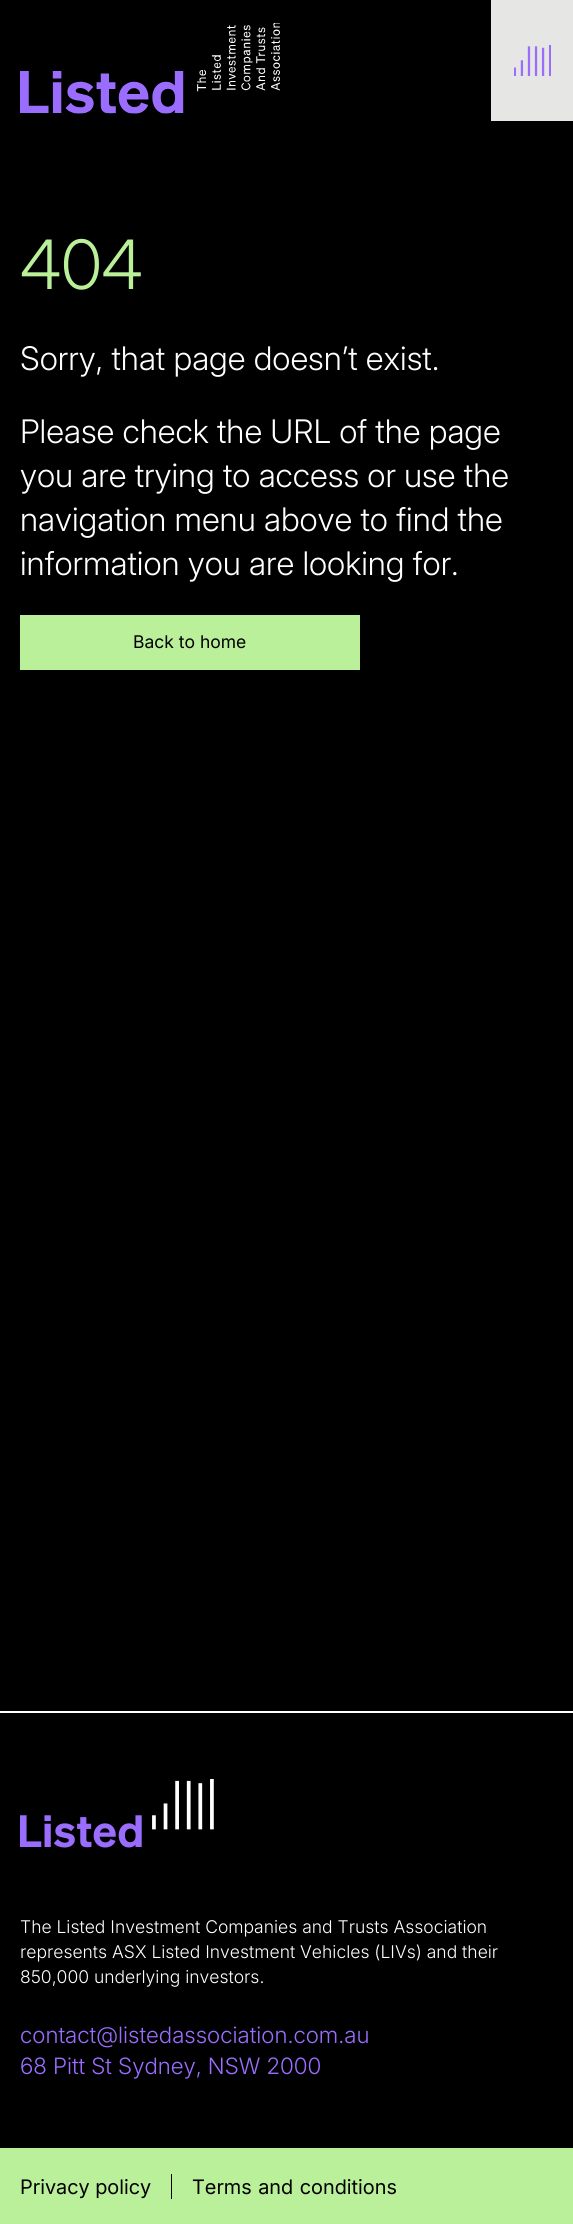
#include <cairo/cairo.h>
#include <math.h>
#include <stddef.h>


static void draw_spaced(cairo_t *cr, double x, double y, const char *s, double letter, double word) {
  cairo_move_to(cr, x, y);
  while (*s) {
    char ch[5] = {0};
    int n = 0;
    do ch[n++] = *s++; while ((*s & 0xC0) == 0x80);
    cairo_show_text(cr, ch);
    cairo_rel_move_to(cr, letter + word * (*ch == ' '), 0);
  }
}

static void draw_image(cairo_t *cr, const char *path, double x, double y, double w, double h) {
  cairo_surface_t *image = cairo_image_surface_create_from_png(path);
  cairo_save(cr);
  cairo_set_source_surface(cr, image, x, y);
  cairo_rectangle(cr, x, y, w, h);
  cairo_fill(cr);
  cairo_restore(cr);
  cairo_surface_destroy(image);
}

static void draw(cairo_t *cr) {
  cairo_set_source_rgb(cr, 1, 1, 1);
  cairo_paint(cr);
  cairo_set_source_rgb(cr, 0, 0, 0);
  cairo_rectangle(cr, 0, 0, 573, 1711);
  cairo_fill(cr);
  draw_image(cr, "images/1.png", 20, 23, 260, 91);
  cairo_set_source_rgb(cr, 230 / 255.0, 230 / 255.0, 229 / 255.0);
  cairo_rectangle(cr, 491, 0, 82, 121);
  cairo_fill(cr);
  draw_image(cr, "images/2.png", 514, 45, 37, 31);
  cairo_set_source_rgb(cr, 186 / 255.0, 240 / 255.0, 154 / 255.0);
  cairo_rectangle(cr, 20, 615, 340, 55);
  cairo_fill(cr);
  cairo_set_source_rgb(cr, 0, 0, 0);
  cairo_rectangle(cr, 0, 1713, 573, 435);
  cairo_fill(cr);
  draw_image(cr, "images/3.png", 20, 1779, 194, 69);
  cairo_set_source_rgb(cr, 186 / 255.0, 240 / 255.0, 154 / 255.0);
  cairo_rectangle(cr, 0, 2148, 573, 76);
  cairo_fill(cr);
  cairo_set_source_rgb(cr, 0, 0, 0);
  cairo_rectangle(cr, 171, 2174, 1, 25);
  cairo_fill(cr);
  cairo_select_font_face(cr, "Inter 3 Light", CAIRO_FONT_SLANT_NORMAL, CAIRO_FONT_WEIGHT_NORMAL);
  cairo_set_font_size(cr, 68);
  cairo_set_source_rgb(cr, 186 / 255.0, 240 / 255.0, 154 / 255.0);
  cairo_move_to(cr, 20, 289);
  cairo_show_text(cr, "404");
  cairo_select_font_face(cr, "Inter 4 Light", CAIRO_FONT_SLANT_NORMAL, CAIRO_FONT_WEIGHT_NORMAL);
  cairo_set_font_size(cr, 32.5);
  cairo_set_source_rgb(cr, 1, 1, 1);
  cairo_move_to(cr, 20, 370);
  cairo_show_text(cr, "Sorry, that page doesn’t exist.");
  cairo_move_to(cr, 20, 443);
  cairo_show_text(cr, "Please check the URL of the page");
  cairo_move_to(cr, 20, 487);
  cairo_show_text(cr, "you are trying to access or use the");
  cairo_move_to(cr, 20, 531);
  cairo_show_text(cr, "navigation menu above to find the");
  cairo_move_to(cr, 20, 575);
  cairo_show_text(cr, "information you are looking for.");
  cairo_select_font_face(cr, "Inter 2", CAIRO_FONT_SLANT_NORMAL, CAIRO_FONT_WEIGHT_NORMAL);
  cairo_set_font_size(cr, 17.5);
  cairo_set_source_rgb(cr, 0, 0, 0);
  cairo_move_to(cr, 133, 648);
  cairo_show_text(cr, "Back to home");
  cairo_select_font_face(cr, "Inter Light", CAIRO_FONT_SLANT_NORMAL, CAIRO_FONT_WEIGHT_NORMAL);
  cairo_set_source_rgb(cr, 1, 1, 1);
  cairo_move_to(cr, 20, 1933);
  cairo_show_text(cr, "The Listed Investment Companies and Trusts Association");
  cairo_move_to(cr, 20, 1958);
  cairo_show_text(cr, "represents ASX Listed Investment Vehicles (LIVs) and their");
  cairo_move_to(cr, 20, 1983);
  cairo_show_text(cr, "850,000 underlying investors.");
  cairo_select_font_face(cr, "Inter 2 Light", CAIRO_FONT_SLANT_NORMAL, CAIRO_FONT_WEIGHT_NORMAL);
  cairo_set_font_size(cr, 22.5);
  cairo_set_source_rgb(cr, 154 / 255.0, 109 / 255.0, 254 / 255.0);
  cairo_move_to(cr, 20, 2043);
  cairo_show_text(cr, "contact@listedassociation.com.au");
  cairo_move_to(cr, 20, 2074);
  cairo_show_text(cr, "68 Pitt St Sydney, NSW 2000");
  cairo_select_font_face(cr, "Inter", CAIRO_FONT_SLANT_NORMAL, CAIRO_FONT_WEIGHT_NORMAL);
  cairo_set_font_size(cr, 20);
  cairo_set_source_rgb(cr, 0, 0, 0);
  cairo_move_to(cr, 20, 2194);
  cairo_show_text(cr, "Privacy policy");
  draw_spaced(cr, 192, 2194, "Terms and conditions", 0, 1);
}

int main(void) {
  cairo_surface_t *surface = cairo_image_surface_create(CAIRO_FORMAT_RGB24, 573, 2224);
  cairo_t *cr = cairo_create(surface);
  cairo_font_options_t *options = cairo_font_options_create();
  cairo_font_options_set_hint_metrics(options, CAIRO_HINT_METRICS_OFF);
  cairo_font_options_set_hint_style(options, CAIRO_HINT_STYLE_NONE);
  cairo_set_font_options(cr, options);
  cairo_set_miter_limit(cr, 4);
  draw(cr);
  cairo_surface_write_to_png(surface, "out.png");
  cairo_font_options_destroy(options);
  cairo_destroy(cr);
  cairo_surface_destroy(surface);
  return 0;
}
